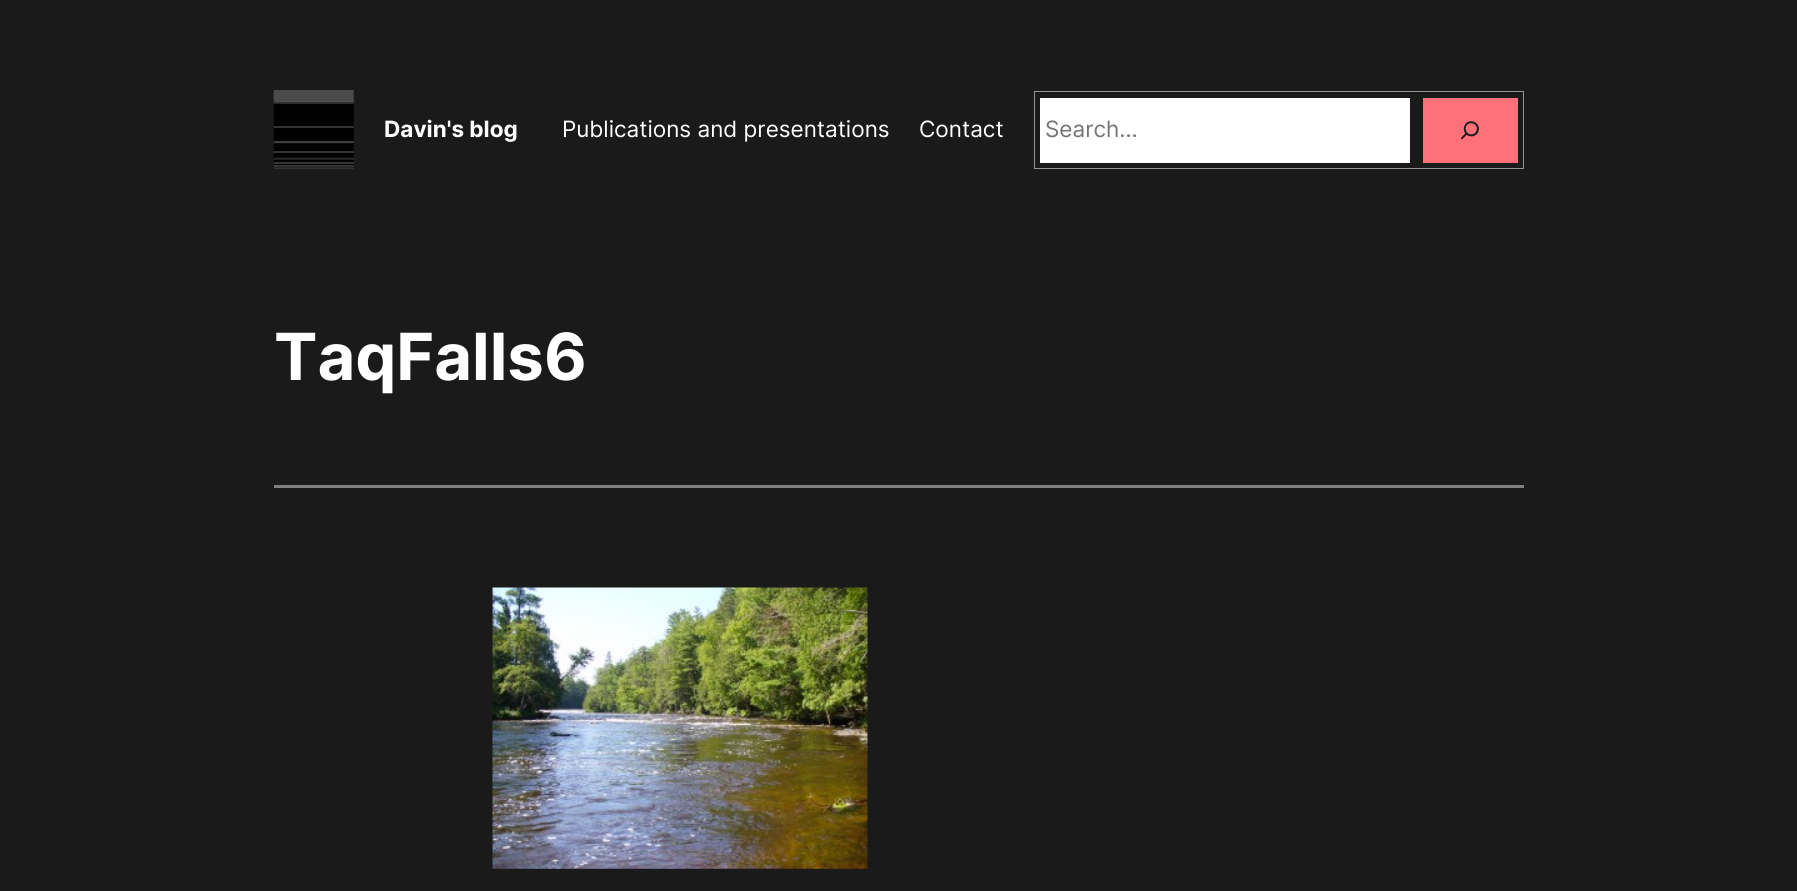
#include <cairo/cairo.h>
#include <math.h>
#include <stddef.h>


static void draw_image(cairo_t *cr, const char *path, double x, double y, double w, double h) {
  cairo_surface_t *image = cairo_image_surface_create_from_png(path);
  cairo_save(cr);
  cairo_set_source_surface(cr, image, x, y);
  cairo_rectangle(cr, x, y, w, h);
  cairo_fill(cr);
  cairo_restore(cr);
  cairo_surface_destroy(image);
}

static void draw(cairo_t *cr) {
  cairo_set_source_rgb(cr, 26 / 255.0, 26 / 255.0, 26 / 255.0);
  cairo_paint(cr);
  draw_image(cr, "images/1.png", 273, 90, 81, 80);
  cairo_rectangle(cr, 1034.5, 91.5, 489, 77);
  cairo_set_source_rgb(cr, 148 / 255.0, 148 / 255.0, 148 / 255.0);
  cairo_set_line_width(cr, 1);
  cairo_stroke(cr);
  cairo_set_source_rgb(cr, 1, 1, 1);
  cairo_rectangle(cr, 1040, 98, 370, 65);
  cairo_fill(cr);
  cairo_set_source_rgb(cr, 1, 113 / 255.0, 121 / 255.0);
  cairo_rectangle(cr, 1423, 98, 95, 65);
  cairo_fill(cr);
  draw_image(cr, "images/2.png", 1460, 121, 19, 19);
  cairo_set_source_rgb(cr, 128 / 255.0, 128 / 255.0, 128 / 255.0);
  cairo_rectangle(cr, 274, 485, 1250, 3);
  cairo_fill(cr);
  draw_image(cr, "images/3.png", 492, 587, 376, 282);
  cairo_select_font_face(cr, "Inter", CAIRO_FONT_SLANT_NORMAL, CAIRO_FONT_WEIGHT_BOLD);
  cairo_set_font_size(cr, 22.5);
  cairo_set_source_rgb(cr, 1, 1, 1);
  cairo_move_to(cr, 384, 137);
  cairo_show_text(cr, "Davin's blog");
  cairo_select_font_face(cr, "Inter", CAIRO_FONT_SLANT_NORMAL, CAIRO_FONT_WEIGHT_NORMAL);
  cairo_move_to(cr, 562, 137);
  cairo_show_text(cr, "Publications and presentations");
  cairo_move_to(cr, 919, 137);
  cairo_show_text(cr, "Contact");
  cairo_set_source_rgb(cr, 117 / 255.0, 117 / 255.0, 117 / 255.0);
  cairo_move_to(cr, 1045, 137);
  cairo_show_text(cr, "Search…");
  cairo_select_font_face(cr, "Inter", CAIRO_FONT_SLANT_NORMAL, CAIRO_FONT_WEIGHT_BOLD);
  cairo_set_font_size(cr, 65);
  cairo_set_source_rgb(cr, 1, 1, 1);
  cairo_move_to(cr, 274, 380);
  cairo_show_text(cr, "TaqFalls6");
}

int main(void) {
  cairo_surface_t *surface = cairo_image_surface_create(CAIRO_FORMAT_RGB24, 1797, 891);
  cairo_t *cr = cairo_create(surface);
  cairo_font_options_t *options = cairo_font_options_create();
  cairo_font_options_set_hint_metrics(options, CAIRO_HINT_METRICS_OFF);
  cairo_font_options_set_hint_style(options, CAIRO_HINT_STYLE_NONE);
  cairo_set_font_options(cr, options);
  cairo_set_miter_limit(cr, 4);
  draw(cr);
  cairo_surface_write_to_png(surface, "out.png");
  cairo_font_options_destroy(options);
  cairo_destroy(cr);
  cairo_surface_destroy(surface);
  return 0;
}
